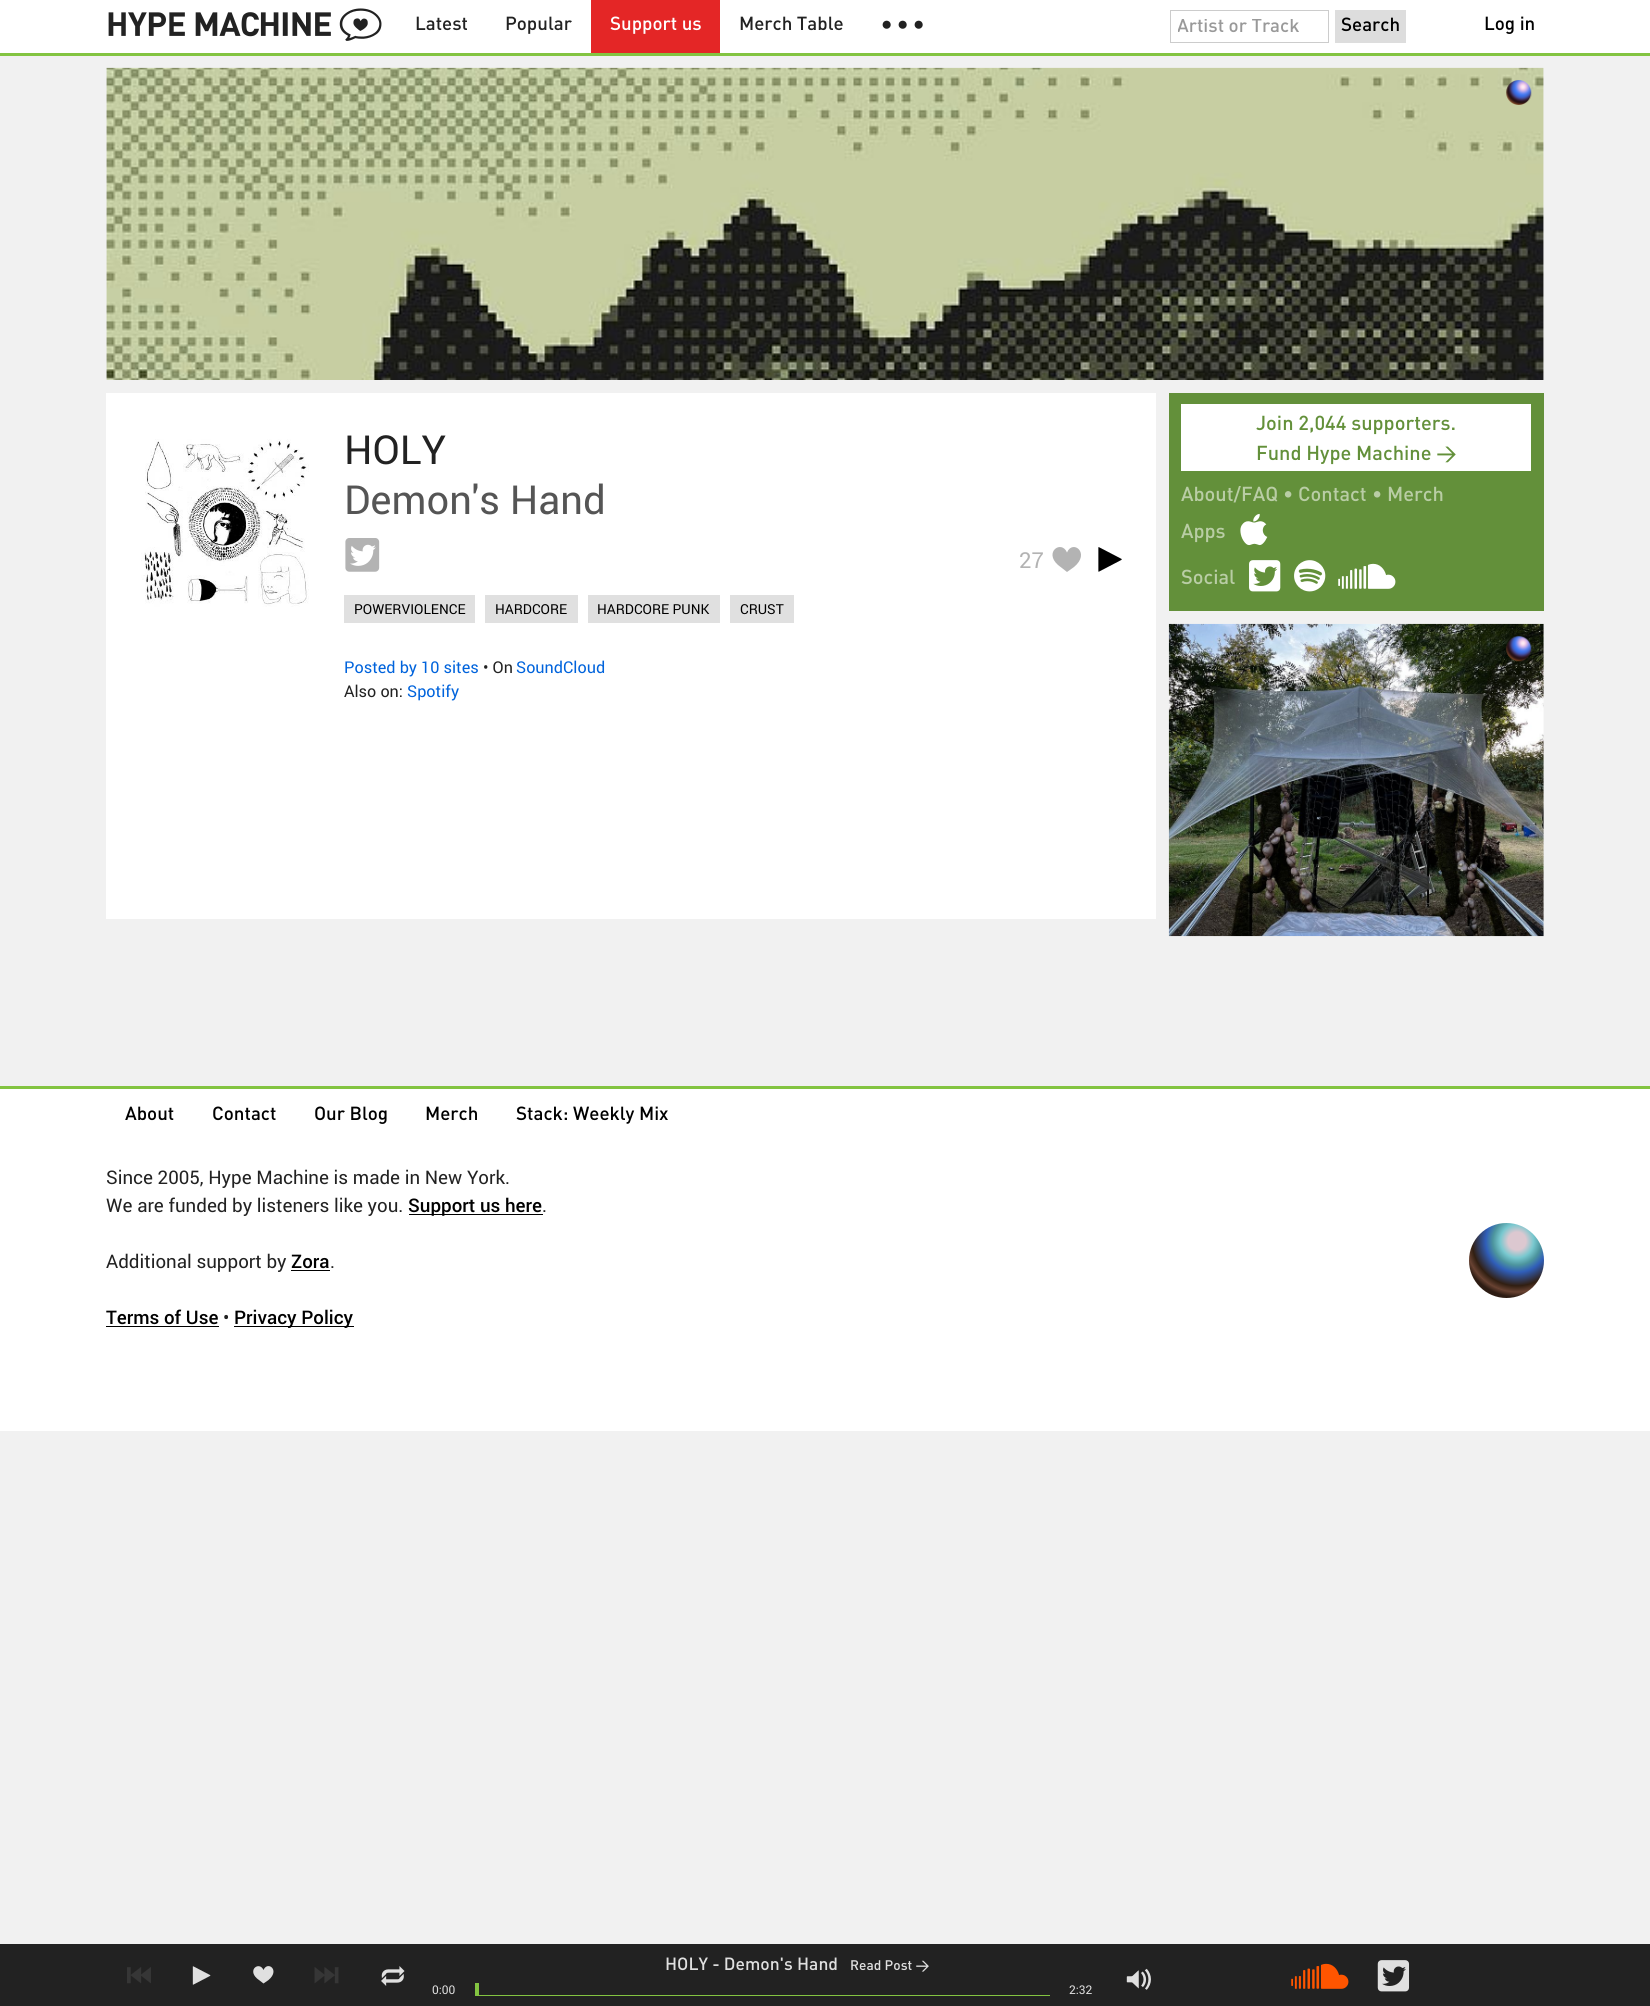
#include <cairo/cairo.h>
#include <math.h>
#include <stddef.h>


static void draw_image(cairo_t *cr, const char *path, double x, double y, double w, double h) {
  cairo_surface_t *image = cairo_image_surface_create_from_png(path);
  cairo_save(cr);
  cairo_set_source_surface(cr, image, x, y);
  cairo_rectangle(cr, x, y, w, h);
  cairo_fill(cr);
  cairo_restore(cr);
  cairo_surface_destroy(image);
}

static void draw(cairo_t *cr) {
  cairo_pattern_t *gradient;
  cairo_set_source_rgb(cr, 241 / 255.0, 241 / 255.0, 241 / 255.0);
  cairo_paint(cr);
  cairo_set_source_rgb(cr, 1, 1, 1);
  cairo_rectangle(cr, 0, 0, 1650, 53);
  cairo_fill(cr);
  cairo_set_source_rgb(cr, 131 / 255.0, 196 / 255.0, 65 / 255.0);
  cairo_rectangle(cr, 0, 53, 1650, 3);
  cairo_fill(cr);
  cairo_set_source_rgb(cr, 228 / 255.0, 38 / 255.0, 38 / 255.0);
  cairo_rectangle(cr, 591, 0, 129, 53);
  cairo_fill(cr);
  cairo_rectangle(cr, 1170.5, 10.5, 158, 32);
  cairo_set_source_rgb(cr, 204 / 255.0, 204 / 255.0, 204 / 255.0);
  cairo_set_line_width(cr, 1);
  cairo_stroke(cr);
  cairo_set_source_rgb(cr, 221 / 255.0, 221 / 255.0, 221 / 255.0);
  cairo_rectangle(cr, 1335, 10, 71, 33);
  cairo_fill(cr);
  draw_image(cr, "images/1.png", 106, 67, 1438, 313);
  cairo_set_source_rgb(cr, 1, 1, 1);
  cairo_rectangle(cr, 106, 393, 1050, 526);
  cairo_fill(cr);
  draw_image(cr, "images/2.png", 141, 439, 168, 168);
  draw_image(cr, "images/3.png", 345, 538, 35, 34);
  cairo_set_source_rgb(cr, 179 / 255.0, 179 / 255.0, 179 / 255.0);
  cairo_new_path(cr);
  cairo_move_to(cr, 1067, 552.5);
  cairo_curve_to(cr, 1072.5, 539, 1091, 553, 1074, 567);
  cairo_line_to(cr, 1067, 572);
  cairo_line_to(cr, 1058, 565);
  cairo_curve_to(cr, 1043.5, 552, 1061.5, 539.5, 1067, 552.5);
  cairo_close_path(cr);
  cairo_fill(cr);
  draw_image(cr, "images/4.png", 1098, 547, 24, 25);
  cairo_set_source_rgb(cr, 224 / 255.0, 224 / 255.0, 224 / 255.0);
  cairo_rectangle(cr, 344, 595, 131, 28);
  cairo_fill(cr);
  cairo_rectangle(cr, 485, 595, 93, 28);
  cairo_fill(cr);
  cairo_rectangle(cr, 588, 595, 132, 28);
  cairo_fill(cr);
  cairo_rectangle(cr, 730, 595, 64, 28);
  cairo_fill(cr);
  cairo_set_source_rgb(cr, 99 / 255.0, 144 / 255.0, 58 / 255.0);
  cairo_rectangle(cr, 1169, 393, 375, 218);
  cairo_fill(cr);
  cairo_set_source_rgb(cr, 1, 1, 1);
  cairo_rectangle(cr, 1181, 404, 350, 67);
  cairo_fill(cr);
  draw_image(cr, "images/5.png", 1240, 513, 28, 33);
  draw_image(cr, "images/6.png", 1249, 560, 32, 32);
  draw_image(cr, "images/7.png", 1294, 560, 32, 32);
  draw_image(cr, "images/8.png", 1168, 623, 376, 314);
  cairo_rectangle(cr, 0, 1089, 1650, 342);
  cairo_fill(cr);
  cairo_set_source_rgb(cr, 131 / 255.0, 196 / 255.0, 65 / 255.0);
  cairo_rectangle(cr, 0, 1086, 1650, 3);
  cairo_fill(cr);
  cairo_set_source_rgb(cr, 0, 0, 0);
  cairo_rectangle(cr, 409, 1214, 134, 1);
  cairo_fill(cr);
  cairo_rectangle(cr, 291, 1270, 39, 1);
  cairo_fill(cr);
  gradient = cairo_pattern_create_radial(1517, 1241, 0, 1517, 1241, 56);
  cairo_pattern_add_color_stop_rgba(gradient, 0.16, 220 / 255.0, 200 / 255.0, 208 / 255.0, 1);
  cairo_pattern_add_color_stop_rgba(gradient, 0.3, 120 / 255.0, 200 / 255.0, 207 / 255.0, 1);
  cairo_pattern_add_color_stop_rgba(gradient, 0.43, 77 / 255.0, 149 / 255.0, 158 / 255.0, 1);
  cairo_pattern_add_color_stop_rgba(gradient, 0.56, 48 / 255.0, 94 / 255.0, 185 / 255.0, 1);
  cairo_pattern_add_color_stop_rgba(gradient, 0.8, 49 / 255.0, 31 / 255.0, 18 / 255.0, 1);
  cairo_pattern_add_color_stop_rgba(gradient, 0.91, 104 / 255.0, 66 / 255.0, 50 / 255.0, 1);
  cairo_pattern_add_color_stop_rgba(gradient, 1, 45 / 255.0, 28 / 255.0, 19 / 255.0, 1);
  cairo_set_source(cr, gradient);
  cairo_pattern_destroy(gradient);
  cairo_arc(cr, 1506.5, 1260.5, 37.5, 0, 2 * M_PI);
  cairo_fill(cr);
  cairo_set_source_rgb(cr, 0, 0, 0);
  cairo_rectangle(cr, 106, 1326, 113, 1);
  cairo_fill(cr);
  cairo_rectangle(cr, 234, 1326, 120, 1);
  cairo_fill(cr);
  cairo_set_source_rgb(cr, 34 / 255.0, 34 / 255.0, 34 / 255.0);
  cairo_rectangle(cr, 0, 1944, 1650, 62);
  cairo_fill(cr);
  draw_image(cr, "images/9.png", 127, 1967, 24, 17);
  draw_image(cr, "images/10.png", 192, 1966, 19, 19);
  cairo_set_source_rgb(cr, 224 / 255.0, 224 / 255.0, 224 / 255.0);
  cairo_new_path(cr);
  cairo_move_to(cr, 263.5, 1970);
  cairo_curve_to(cr, 267.5, 1960.5, 280.5, 1970, 268.5, 1980);
  cairo_line_to(cr, 263.5, 1983.5);
  cairo_line_to(cr, 257, 1978.5);
  cairo_curve_to(cr, 247, 1969.5, 259.5, 1961, 263.5, 1970);
  cairo_close_path(cr);
  cairo_fill(cr);
  draw_image(cr, "images/11.png", 314, 1967, 25, 17);
  draw_image(cr, "images/12.png", 381, 1966, 24, 20);
  draw_image(cr, "images/13.png", 1377, 1960, 33, 32);
  cairo_set_source_rgb(cr, 131 / 255.0, 196 / 255.0, 65 / 255.0);
  cairo_rectangle(cr, 475, 1995, 575, 1);
  cairo_fill(cr);
  cairo_rectangle(cr, 475, 1983, 4, 12);
  cairo_fill(cr);
  draw_image(cr, "images/14.png", 1126, 1968, 25, 22);
  cairo_select_font_face(cr, "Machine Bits", CAIRO_FONT_SLANT_NORMAL, CAIRO_FONT_WEIGHT_NORMAL);
  cairo_set_font_size(cr, 47.5);
  cairo_set_source_rgb(cr, 34 / 255.0, 34 / 255.0, 34 / 255.0);
  cairo_move_to(cr, 106, 35);
  cairo_show_text(cr, "1");
  cairo_select_font_face(cr, "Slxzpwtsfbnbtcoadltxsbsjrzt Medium", CAIRO_FONT_SLANT_NORMAL, CAIRO_FONT_WEIGHT_NORMAL);
  cairo_set_font_size(cr, 18.75);
  cairo_move_to(cr, 415, 30);
  cairo_show_text(cr, "Latest");
  cairo_move_to(cr, 505, 30);
  cairo_show_text(cr, "Popular");
  cairo_set_source_rgb(cr, 1, 1, 1);
  cairo_move_to(cr, 610, 30);
  cairo_show_text(cr, "Support us");
  cairo_set_source_rgb(cr, 34 / 255.0, 34 / 255.0, 34 / 255.0);
  cairo_move_to(cr, 739, 30);
  cairo_show_text(cr, "Merch Table");
  cairo_select_font_face(cr, "Liberation Serif", CAIRO_FONT_SLANT_NORMAL, CAIRO_FONT_WEIGHT_BOLD);
  cairo_move_to(cr, 881, 30);
  cairo_show_text(cr, "● ● ●");
  cairo_save(cr);
  cairo_rectangle(cr, 1178, 19, 150, 19);
  cairo_clip(cr);
  cairo_select_font_face(cr, "Slxzpwtsfbnbtcoadltxsbsjrzt Medium", CAIRO_FONT_SLANT_NORMAL, CAIRO_FONT_WEIGHT_NORMAL);
  cairo_set_source_rgb(cr, 153 / 255.0, 153 / 255.0, 153 / 255.0);
  cairo_move_to(cr, 1177, 32);
  cairo_show_text(cr, "Artist or Track");
  cairo_restore(cr);
  cairo_select_font_face(cr, "Slxzpwtsfbnbtcoadltxsbsjrzt Medium", CAIRO_FONT_SLANT_NORMAL, CAIRO_FONT_WEIGHT_NORMAL);
  cairo_set_source_rgb(cr, 0, 0, 0);
  cairo_move_to(cr, 1341, 31);
  cairo_show_text(cr, "Search");
  cairo_move_to(cr, 1484, 30);
  cairo_show_text(cr, "Log in");
  cairo_select_font_face(cr, "Roboto", CAIRO_FONT_SLANT_NORMAL, CAIRO_FONT_WEIGHT_NORMAL);
  cairo_set_font_size(cr, 40);
  cairo_set_source_rgb(cr, 34 / 255.0, 34 / 255.0, 34 / 255.0);
  cairo_move_to(cr, 344, 464);
  cairo_show_text(cr, "HOLY");
  cairo_set_source_rgb(cr, 85 / 255.0, 85 / 255.0, 85 / 255.0);
  cairo_move_to(cr, 344, 514);
  cairo_show_text(cr, "Demon's Hand");
  cairo_set_font_size(cr, 22);
  cairo_set_source_rgb(cr, 179 / 255.0, 179 / 255.0, 179 / 255.0);
  cairo_move_to(cr, 1019, 568);
  cairo_show_text(cr, "27");
  cairo_set_font_size(cr, 13.75);
  cairo_set_source_rgb(cr, 0, 0, 0);
  cairo_move_to(cr, 354, 614);
  cairo_show_text(cr, "POWERVIOLENCE");
  cairo_move_to(cr, 495, 614);
  cairo_show_text(cr, "HARDCORE");
  cairo_move_to(cr, 597, 614);
  cairo_show_text(cr, "HARDCORE PUNK");
  cairo_move_to(cr, 740, 614);
  cairo_show_text(cr, "CRUST");
  cairo_set_font_size(cr, 16.25);
  cairo_set_source_rgb(cr, 0, 99 / 255.0, 220 / 255.0);
  cairo_move_to(cr, 344, 673);
  cairo_show_text(cr, "Posted by 10 sites");
  cairo_set_source_rgb(cr, 34 / 255.0, 34 / 255.0, 34 / 255.0);
  cairo_move_to(cr, 483, 673);
  cairo_show_text(cr, "• On");
  cairo_set_source_rgb(cr, 0, 99 / 255.0, 220 / 255.0);
  cairo_move_to(cr, 516, 673);
  cairo_show_text(cr, "SoundCloud");
  cairo_set_source_rgb(cr, 34 / 255.0, 34 / 255.0, 34 / 255.0);
  cairo_move_to(cr, 344, 697);
  cairo_show_text(cr, "Also on:");
  cairo_set_source_rgb(cr, 0, 99 / 255.0, 220 / 255.0);
  cairo_move_to(cr, 407, 697);
  cairo_show_text(cr, "Spotify");
  cairo_select_font_face(cr, "Slxzpwtsfbnbtcoadltxsbsjrzt Medium", CAIRO_FONT_SLANT_NORMAL, CAIRO_FONT_WEIGHT_NORMAL);
  cairo_set_font_size(cr, 20);
  cairo_set_source_rgb(cr, 99 / 255.0, 144 / 255.0, 58 / 255.0);
  cairo_move_to(cr, 1256, 430);
  cairo_show_text(cr, "Join 2,044 supporters.");
  cairo_move_to(cr, 1256, 460);
  cairo_show_text(cr, "Fund Hype Machine →");
  cairo_save(cr);
  cairo_rectangle(cr, 1181, 486, 350, 20);
  cairo_clip(cr);
  cairo_set_source_rgb(cr, 185 / 255.0, 205 / 255.0, 165 / 255.0);
  cairo_move_to(cr, 1181, 501);
  cairo_show_text(cr, "About/FAQ");
  cairo_restore(cr);
  cairo_set_source_rgb(cr, 185 / 255.0, 205 / 255.0, 165 / 255.0);
  cairo_move_to(cr, 1283, 501);
  cairo_show_text(cr, "•");
  cairo_move_to(cr, 1298, 501);
  cairo_show_text(cr, "Contact");
  cairo_move_to(cr, 1372, 501);
  cairo_show_text(cr, "•");
  cairo_move_to(cr, 1387, 501);
  cairo_show_text(cr, "Merch");
  cairo_move_to(cr, 1181, 538);
  cairo_show_text(cr, "Apps");
  cairo_move_to(cr, 1181, 584);
  cairo_show_text(cr, "Social");
  cairo_select_font_face(cr, "Machine Bits", CAIRO_FONT_SLANT_NORMAL, CAIRO_FONT_WEIGHT_NORMAL);
  cairo_set_font_size(cr, 25);
  cairo_set_source_rgb(cr, 1, 1, 1);
  cairo_move_to(cr, 1337, 586);
  cairo_show_text(cr, "9");
  cairo_select_font_face(cr, "Slxzpwtsfbnbtcoadltxsbsjrzt Medium", CAIRO_FONT_SLANT_NORMAL, CAIRO_FONT_WEIGHT_NORMAL);
  cairo_set_font_size(cr, 18.75);
  cairo_set_source_rgb(cr, 0, 0, 0);
  cairo_move_to(cr, 125, 1120);
  cairo_show_text(cr, "About");
  cairo_move_to(cr, 212, 1120);
  cairo_show_text(cr, "Contact");
  cairo_move_to(cr, 314, 1120);
  cairo_show_text(cr, "Our Blog");
  cairo_move_to(cr, 425, 1120);
  cairo_show_text(cr, "Merch");
  cairo_move_to(cr, 516, 1120);
  cairo_show_text(cr, "Stack: Weekly Mix");
  cairo_select_font_face(cr, "Roboto", CAIRO_FONT_SLANT_NORMAL, CAIRO_FONT_WEIGHT_NORMAL);
  cairo_set_source_rgb(cr, 34 / 255.0, 34 / 255.0, 34 / 255.0);
  cairo_move_to(cr, 106, 1184);
  cairo_show_text(cr, "Since 2005, Hype Machine is made in New York.");
  cairo_move_to(cr, 106, 1212);
  cairo_show_text(cr, "We are funded by listeners like you.");
  cairo_select_font_face(cr, "Roboto Medium", CAIRO_FONT_SLANT_NORMAL, CAIRO_FONT_WEIGHT_NORMAL);
  cairo_set_source_rgb(cr, 0, 0, 0);
  cairo_move_to(cr, 408, 1212);
  cairo_show_text(cr, "Support us here");
  cairo_select_font_face(cr, "Roboto", CAIRO_FONT_SLANT_NORMAL, CAIRO_FONT_WEIGHT_NORMAL);
  cairo_set_source_rgb(cr, 34 / 255.0, 34 / 255.0, 34 / 255.0);
  cairo_move_to(cr, 542, 1212);
  cairo_show_text(cr, ".");
  cairo_move_to(cr, 106, 1268);
  cairo_show_text(cr, "Additional support by");
  cairo_select_font_face(cr, "Roboto Medium", CAIRO_FONT_SLANT_NORMAL, CAIRO_FONT_WEIGHT_NORMAL);
  cairo_set_source_rgb(cr, 0, 0, 0);
  cairo_move_to(cr, 291, 1268);
  cairo_show_text(cr, "Zora");
  cairo_select_font_face(cr, "Roboto", CAIRO_FONT_SLANT_NORMAL, CAIRO_FONT_WEIGHT_NORMAL);
  cairo_set_source_rgb(cr, 34 / 255.0, 34 / 255.0, 34 / 255.0);
  cairo_move_to(cr, 330, 1268);
  cairo_show_text(cr, ".");
  cairo_select_font_face(cr, "Roboto Medium", CAIRO_FONT_SLANT_NORMAL, CAIRO_FONT_WEIGHT_NORMAL);
  cairo_set_source_rgb(cr, 0, 0, 0);
  cairo_move_to(cr, 106, 1324);
  cairo_show_text(cr, "Terms of Use");
  cairo_select_font_face(cr, "Roboto", CAIRO_FONT_SLANT_NORMAL, CAIRO_FONT_WEIGHT_NORMAL);
  cairo_set_source_rgb(cr, 34 / 255.0, 34 / 255.0, 34 / 255.0);
  cairo_move_to(cr, 223, 1324);
  cairo_show_text(cr, "•");
  cairo_select_font_face(cr, "Roboto Medium", CAIRO_FONT_SLANT_NORMAL, CAIRO_FONT_WEIGHT_NORMAL);
  cairo_set_source_rgb(cr, 0, 0, 0);
  cairo_move_to(cr, 234, 1324);
  cairo_show_text(cr, "Privacy Policy");
  cairo_select_font_face(cr, "Slxzpwtsfbnbtcoadltxsbsjrzt Medium", CAIRO_FONT_SLANT_NORMAL, CAIRO_FONT_WEIGHT_NORMAL);
  cairo_set_font_size(cr, 17.5);
  cairo_set_source_rgb(cr, 224 / 255.0, 224 / 255.0, 224 / 255.0);
  cairo_move_to(cr, 665, 1970);
  cairo_show_text(cr, "HOLY - Demon's Hand");
  cairo_set_font_size(cr, 13.75);
  cairo_move_to(cr, 850, 1970);
  cairo_show_text(cr, "Read Post →");
  cairo_select_font_face(cr, "Machine Bits", CAIRO_FONT_SLANT_NORMAL, CAIRO_FONT_WEIGHT_NORMAL);
  cairo_set_font_size(cr, 25);
  cairo_set_source_rgb(cr, 1, 85 / 255.0, 0);
  cairo_move_to(cr, 1290, 1986);
  cairo_show_text(cr, "9");
  cairo_select_font_face(cr, "Roboto", CAIRO_FONT_SLANT_NORMAL, CAIRO_FONT_WEIGHT_NORMAL);
  cairo_set_font_size(cr, 12);
  cairo_set_source_rgb(cr, 224 / 255.0, 224 / 255.0, 224 / 255.0);
  cairo_move_to(cr, 432, 1994);
  cairo_show_text(cr, "0:00");
  cairo_move_to(cr, 1069, 1994);
  cairo_show_text(cr, "2:32");
}

int main(void) {
  cairo_surface_t *surface = cairo_image_surface_create(CAIRO_FORMAT_RGB24, 1650, 2006);
  cairo_t *cr = cairo_create(surface);
  cairo_font_options_t *options = cairo_font_options_create();
  cairo_font_options_set_hint_metrics(options, CAIRO_HINT_METRICS_OFF);
  cairo_font_options_set_hint_style(options, CAIRO_HINT_STYLE_NONE);
  cairo_set_font_options(cr, options);
  cairo_set_miter_limit(cr, 4);
  draw(cr);
  cairo_surface_write_to_png(surface, "out.png");
  cairo_font_options_destroy(options);
  cairo_destroy(cr);
  cairo_surface_destroy(surface);
  return 0;
}
